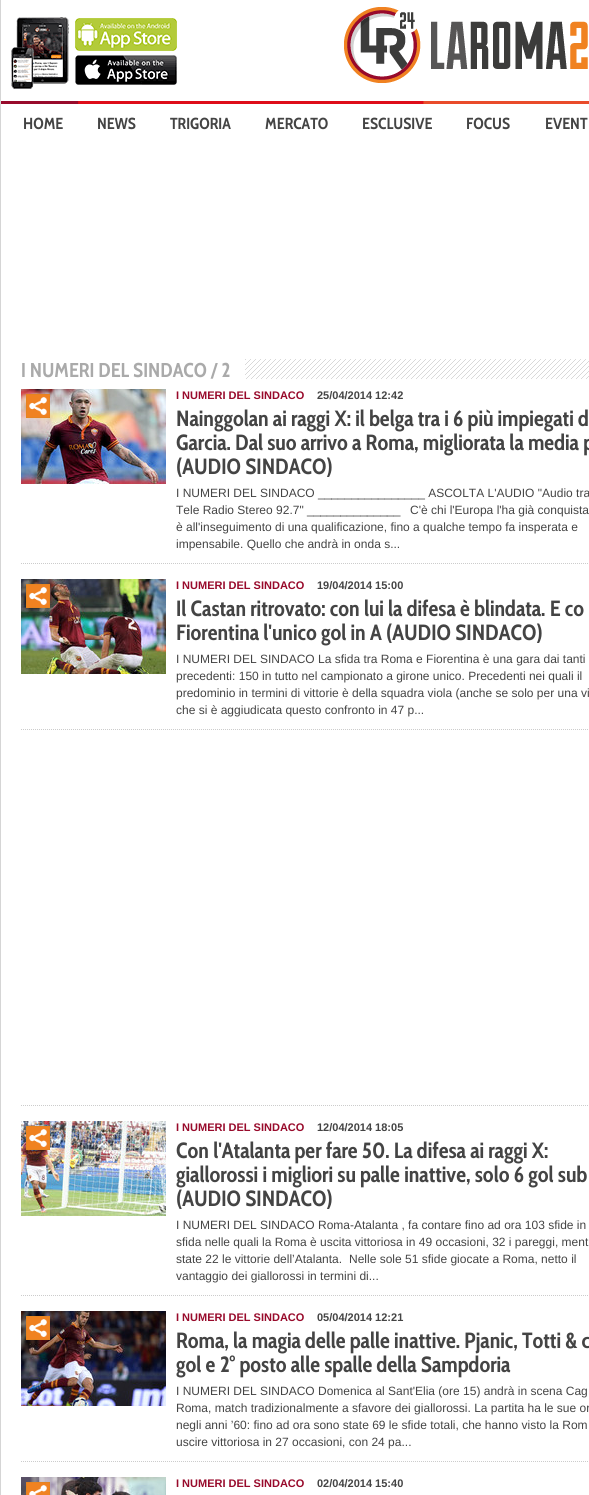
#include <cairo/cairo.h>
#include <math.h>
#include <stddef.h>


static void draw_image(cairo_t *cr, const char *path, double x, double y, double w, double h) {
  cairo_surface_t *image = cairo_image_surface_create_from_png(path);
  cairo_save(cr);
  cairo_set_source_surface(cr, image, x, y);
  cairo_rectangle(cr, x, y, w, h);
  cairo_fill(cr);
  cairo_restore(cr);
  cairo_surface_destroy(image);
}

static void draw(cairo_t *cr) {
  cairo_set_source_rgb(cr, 1, 1, 1);
  cairo_paint(cr);
  cairo_set_source_rgb(cr, 213 / 255.0, 213 / 255.0, 213 / 255.0);
  cairo_rectangle(cr, 0, 0, 1, 1495);
  cairo_fill(cr);
  draw_image(cr, "images/1.png", 11, 17, 166, 72);
  draw_image(cr, "images/2.png", 344, 7, 244, 76);
  draw_image(cr, "images/3.png", 1, 101, 588, 3);
  draw_image(cr, "images/4.png", 245, 359, 344, 20);
  cairo_new_path(cr);
  cairo_move_to(cr, 21, 563.5);
  cairo_line_to(cr, 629, 563.5);
  cairo_set_source_rgb(cr, 204 / 255.0, 204 / 255.0, 204 / 255.0);
  cairo_set_line_width(cr, 1);
  cairo_set_dash(cr, (double[]){1, 1}, 2, 0);
  cairo_stroke(cr);
  draw_image(cr, "images/5.png", 21, 389, 145, 95);
  draw_image(cr, "images/6.png", 26, 394, 24, 24);
  cairo_new_path(cr);
  cairo_move_to(cr, 21, 729.5);
  cairo_line_to(cr, 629, 729.5);
  cairo_stroke(cr);
  draw_image(cr, "images/7.png", 21, 579, 145, 95);
  draw_image(cr, "images/6.png", 26, 584, 24, 24);
  cairo_new_path(cr);
  cairo_move_to(cr, 21, 1105.5);
  cairo_line_to(cr, 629, 1105.5);
  cairo_stroke(cr);
  cairo_new_path(cr);
  cairo_move_to(cr, 21, 1295.5);
  cairo_line_to(cr, 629, 1295.5);
  cairo_stroke(cr);
  draw_image(cr, "images/8.png", 21, 1121, 145, 95);
  draw_image(cr, "images/6.png", 26, 1126, 24, 24);
  cairo_new_path(cr);
  cairo_move_to(cr, 21, 1461.5);
  cairo_line_to(cr, 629, 1461.5);
  cairo_stroke(cr);
  draw_image(cr, "images/9.png", 21, 1311, 145, 95);
  draw_image(cr, "images/6.png", 26, 1316, 24, 24);
  draw_image(cr, "images/10.png", 21, 1477, 145, 18);
  draw_image(cr, "images/11.png", 26, 1482, 24, 13);
  cairo_select_font_face(cr, "Cabin Condensed", CAIRO_FONT_SLANT_NORMAL, CAIRO_FONT_WEIGHT_BOLD);
  cairo_set_font_size(cr, 16);
  cairo_set_source_rgb(cr, 68 / 255.0, 68 / 255.0, 68 / 255.0);
  cairo_move_to(cr, 23, 129);
  cairo_show_text(cr, "HOME");
  cairo_move_to(cr, 97, 129);
  cairo_show_text(cr, "NEWS");
  cairo_move_to(cr, 170, 129);
  cairo_show_text(cr, "TRIGORIA");
  cairo_move_to(cr, 265, 129);
  cairo_show_text(cr, "MERCATO");
  cairo_move_to(cr, 362, 129);
  cairo_show_text(cr, "ESCLUSIVE");
  cairo_move_to(cr, 466, 129);
  cairo_show_text(cr, "FOCUS");
  cairo_move_to(cr, 545, 129);
  cairo_show_text(cr, "EVENT");
  cairo_set_font_size(cr, 20);
  cairo_set_source_rgb(cr, 170 / 255.0, 170 / 255.0, 170 / 255.0);
  cairo_move_to(cr, 21, 377);
  cairo_show_text(cr, "I NUMERI DEL SINDACO / 2");
  cairo_select_font_face(cr, "Liberation Sans", CAIRO_FONT_SLANT_NORMAL, CAIRO_FONT_WEIGHT_BOLD);
  cairo_set_font_size(cr, 11);
  cairo_set_source_rgb(cr, 152 / 255.0, 10 / 255.0, 43 / 255.0);
  cairo_move_to(cr, 176, 399);
  cairo_show_text(cr, "I NUMERI DEL SINDACO");
  cairo_set_source_rgb(cr, 68 / 255.0, 68 / 255.0, 68 / 255.0);
  cairo_move_to(cr, 317, 399);
  cairo_show_text(cr, "25/04/2014 12:42");
  cairo_select_font_face(cr, "Cabin Condensed", CAIRO_FONT_SLANT_NORMAL, CAIRO_FONT_WEIGHT_BOLD);
  cairo_set_font_size(cr, 22);
  cairo_move_to(cr, 176, 426);
  cairo_show_text(cr, "Nainggolan ai raggi X: il belga tra i 6 più impiegati d");
  cairo_move_to(cr, 176, 450);
  cairo_show_text(cr, "Garcia. Dal suo arrivo a Roma, migliorata la media p");
  cairo_move_to(cr, 176, 474);
  cairo_show_text(cr, "(AUDIO SINDACO)");
  cairo_select_font_face(cr, "Liberation Sans", CAIRO_FONT_SLANT_NORMAL, CAIRO_FONT_WEIGHT_NORMAL);
  cairo_set_font_size(cr, 12);
  cairo_move_to(cr, 176, 497);
  cairo_show_text(cr, "I NUMERI DEL SINDACO ________________ ASCOLTA L'AUDIO \"Audio tra");
  cairo_move_to(cr, 176, 514);
  cairo_show_text(cr, "Tele Radio Stereo 92.7\" ______________");
  cairo_move_to(cr, 410, 514);
  cairo_show_text(cr, "C'è chi l'Europa l'ha già conquista");
  cairo_move_to(cr, 176, 531);
  cairo_show_text(cr, "è all'inseguimento di una qualificazione, fino a qualche tempo fa insperata e");
  cairo_move_to(cr, 176, 548);
  cairo_show_text(cr, "impensabile. Quello che andrà in onda s...");
  cairo_select_font_face(cr, "Liberation Sans", CAIRO_FONT_SLANT_NORMAL, CAIRO_FONT_WEIGHT_BOLD);
  cairo_set_font_size(cr, 11);
  cairo_set_source_rgb(cr, 152 / 255.0, 10 / 255.0, 43 / 255.0);
  cairo_move_to(cr, 176, 589);
  cairo_show_text(cr, "I NUMERI DEL SINDACO");
  cairo_set_source_rgb(cr, 68 / 255.0, 68 / 255.0, 68 / 255.0);
  cairo_move_to(cr, 317, 589);
  cairo_show_text(cr, "19/04/2014 15:00");
  cairo_select_font_face(cr, "Cabin Condensed", CAIRO_FONT_SLANT_NORMAL, CAIRO_FONT_WEIGHT_BOLD);
  cairo_set_font_size(cr, 22);
  cairo_move_to(cr, 176, 616);
  cairo_show_text(cr, "Il Castan ritrovato: con lui la difesa è blindata. E co");
  cairo_move_to(cr, 176, 640);
  cairo_show_text(cr, "Fiorentina l'unico gol in A (AUDIO SINDACO)");
  cairo_select_font_face(cr, "Liberation Sans", CAIRO_FONT_SLANT_NORMAL, CAIRO_FONT_WEIGHT_NORMAL);
  cairo_set_font_size(cr, 12);
  cairo_move_to(cr, 176, 663);
  cairo_show_text(cr, "I NUMERI DEL SINDACO La sfida tra Roma e Fiorentina è una gara dai tanti");
  cairo_move_to(cr, 176, 680);
  cairo_show_text(cr, "precedenti: 150 in tutto nel campionato a girone unico. Precedenti nei quali il");
  cairo_move_to(cr, 176, 697);
  cairo_show_text(cr, "predominio in termini di vittorie è della squadra viola (anche se solo per una vi");
  cairo_move_to(cr, 176, 714);
  cairo_show_text(cr, "che si è aggiudicata questo confronto in 47 p...");
  cairo_select_font_face(cr, "Liberation Sans", CAIRO_FONT_SLANT_NORMAL, CAIRO_FONT_WEIGHT_BOLD);
  cairo_set_font_size(cr, 11);
  cairo_set_source_rgb(cr, 152 / 255.0, 10 / 255.0, 43 / 255.0);
  cairo_move_to(cr, 176, 1131);
  cairo_show_text(cr, "I NUMERI DEL SINDACO");
  cairo_set_source_rgb(cr, 68 / 255.0, 68 / 255.0, 68 / 255.0);
  cairo_move_to(cr, 317, 1131);
  cairo_show_text(cr, "12/04/2014 18:05");
  cairo_select_font_face(cr, "Cabin Condensed", CAIRO_FONT_SLANT_NORMAL, CAIRO_FONT_WEIGHT_BOLD);
  cairo_set_font_size(cr, 22);
  cairo_move_to(cr, 176, 1158);
  cairo_show_text(cr, "Con l'Atalanta per fare 50. La difesa ai raggi X:");
  cairo_move_to(cr, 176, 1182);
  cairo_show_text(cr, "giallorossi i migliori su palle inattive, solo 6 gol sub");
  cairo_move_to(cr, 176, 1206);
  cairo_show_text(cr, "(AUDIO SINDACO)");
  cairo_select_font_face(cr, "Liberation Sans", CAIRO_FONT_SLANT_NORMAL, CAIRO_FONT_WEIGHT_NORMAL);
  cairo_set_font_size(cr, 12);
  cairo_move_to(cr, 176, 1229);
  cairo_show_text(cr, "I NUMERI DEL SINDACO Roma-Atalanta , fa contare fino ad ora 103 sfide in");
  cairo_move_to(cr, 176, 1246);
  cairo_show_text(cr, "sfida nelle quali la Roma è uscita vittoriosa in 49 occasioni, 32 i pareggi, ment");
  cairo_move_to(cr, 176, 1263);
  cairo_show_text(cr, "state 22 le vittorie dell’Atalanta.");
  cairo_move_to(cr, 349, 1263);
  cairo_show_text(cr, "Nelle sole 51 sfide giocate a Roma, netto il");
  cairo_move_to(cr, 176, 1280);
  cairo_show_text(cr, "vantaggio dei giallorossi in termini di...");
  cairo_select_font_face(cr, "Liberation Sans", CAIRO_FONT_SLANT_NORMAL, CAIRO_FONT_WEIGHT_BOLD);
  cairo_set_font_size(cr, 11);
  cairo_set_source_rgb(cr, 152 / 255.0, 10 / 255.0, 43 / 255.0);
  cairo_move_to(cr, 176, 1321);
  cairo_show_text(cr, "I NUMERI DEL SINDACO");
  cairo_set_source_rgb(cr, 68 / 255.0, 68 / 255.0, 68 / 255.0);
  cairo_move_to(cr, 317, 1321);
  cairo_show_text(cr, "05/04/2014 12:21");
  cairo_select_font_face(cr, "Cabin Condensed", CAIRO_FONT_SLANT_NORMAL, CAIRO_FONT_WEIGHT_BOLD);
  cairo_set_font_size(cr, 22);
  cairo_move_to(cr, 176, 1348);
  cairo_show_text(cr, "Roma, la magia delle palle inattive. Pjanic, Totti & c");
  cairo_move_to(cr, 176, 1372);
  cairo_show_text(cr, "gol e 2° posto alle spalle della Sampdoria");
  cairo_select_font_face(cr, "Liberation Sans", CAIRO_FONT_SLANT_NORMAL, CAIRO_FONT_WEIGHT_NORMAL);
  cairo_set_font_size(cr, 12);
  cairo_move_to(cr, 176, 1395);
  cairo_show_text(cr, "I NUMERI DEL SINDACO Domenica al Sant'Elia (ore 15) andrà in scena Cag");
  cairo_move_to(cr, 176, 1412);
  cairo_show_text(cr, "Roma, match tradizionalmente a sfavore dei giallorossi. La partita ha le sue or");
  cairo_move_to(cr, 176, 1429);
  cairo_show_text(cr, "negli anni ’60: fino ad ora sono state 69 le sfide totali, che hanno visto la Rom");
  cairo_move_to(cr, 176, 1446);
  cairo_show_text(cr, "uscire vittoriosa in 27 occasioni, con 24 pa...");
  cairo_select_font_face(cr, "Liberation Sans", CAIRO_FONT_SLANT_NORMAL, CAIRO_FONT_WEIGHT_BOLD);
  cairo_set_font_size(cr, 11);
  cairo_set_source_rgb(cr, 152 / 255.0, 10 / 255.0, 43 / 255.0);
  cairo_move_to(cr, 176, 1487);
  cairo_show_text(cr, "I NUMERI DEL SINDACO");
  cairo_set_source_rgb(cr, 68 / 255.0, 68 / 255.0, 68 / 255.0);
  cairo_move_to(cr, 317, 1487);
  cairo_show_text(cr, "02/04/2014 15:40");
}

int main(void) {
  cairo_surface_t *surface = cairo_image_surface_create(CAIRO_FORMAT_RGB24, 589, 1495);
  cairo_t *cr = cairo_create(surface);
  cairo_font_options_t *options = cairo_font_options_create();
  cairo_font_options_set_hint_metrics(options, CAIRO_HINT_METRICS_OFF);
  cairo_font_options_set_hint_style(options, CAIRO_HINT_STYLE_NONE);
  cairo_set_font_options(cr, options);
  cairo_set_miter_limit(cr, 4);
  draw(cr);
  cairo_surface_write_to_png(surface, "out.png");
  cairo_font_options_destroy(options);
  cairo_destroy(cr);
  cairo_surface_destroy(surface);
  return 0;
}
